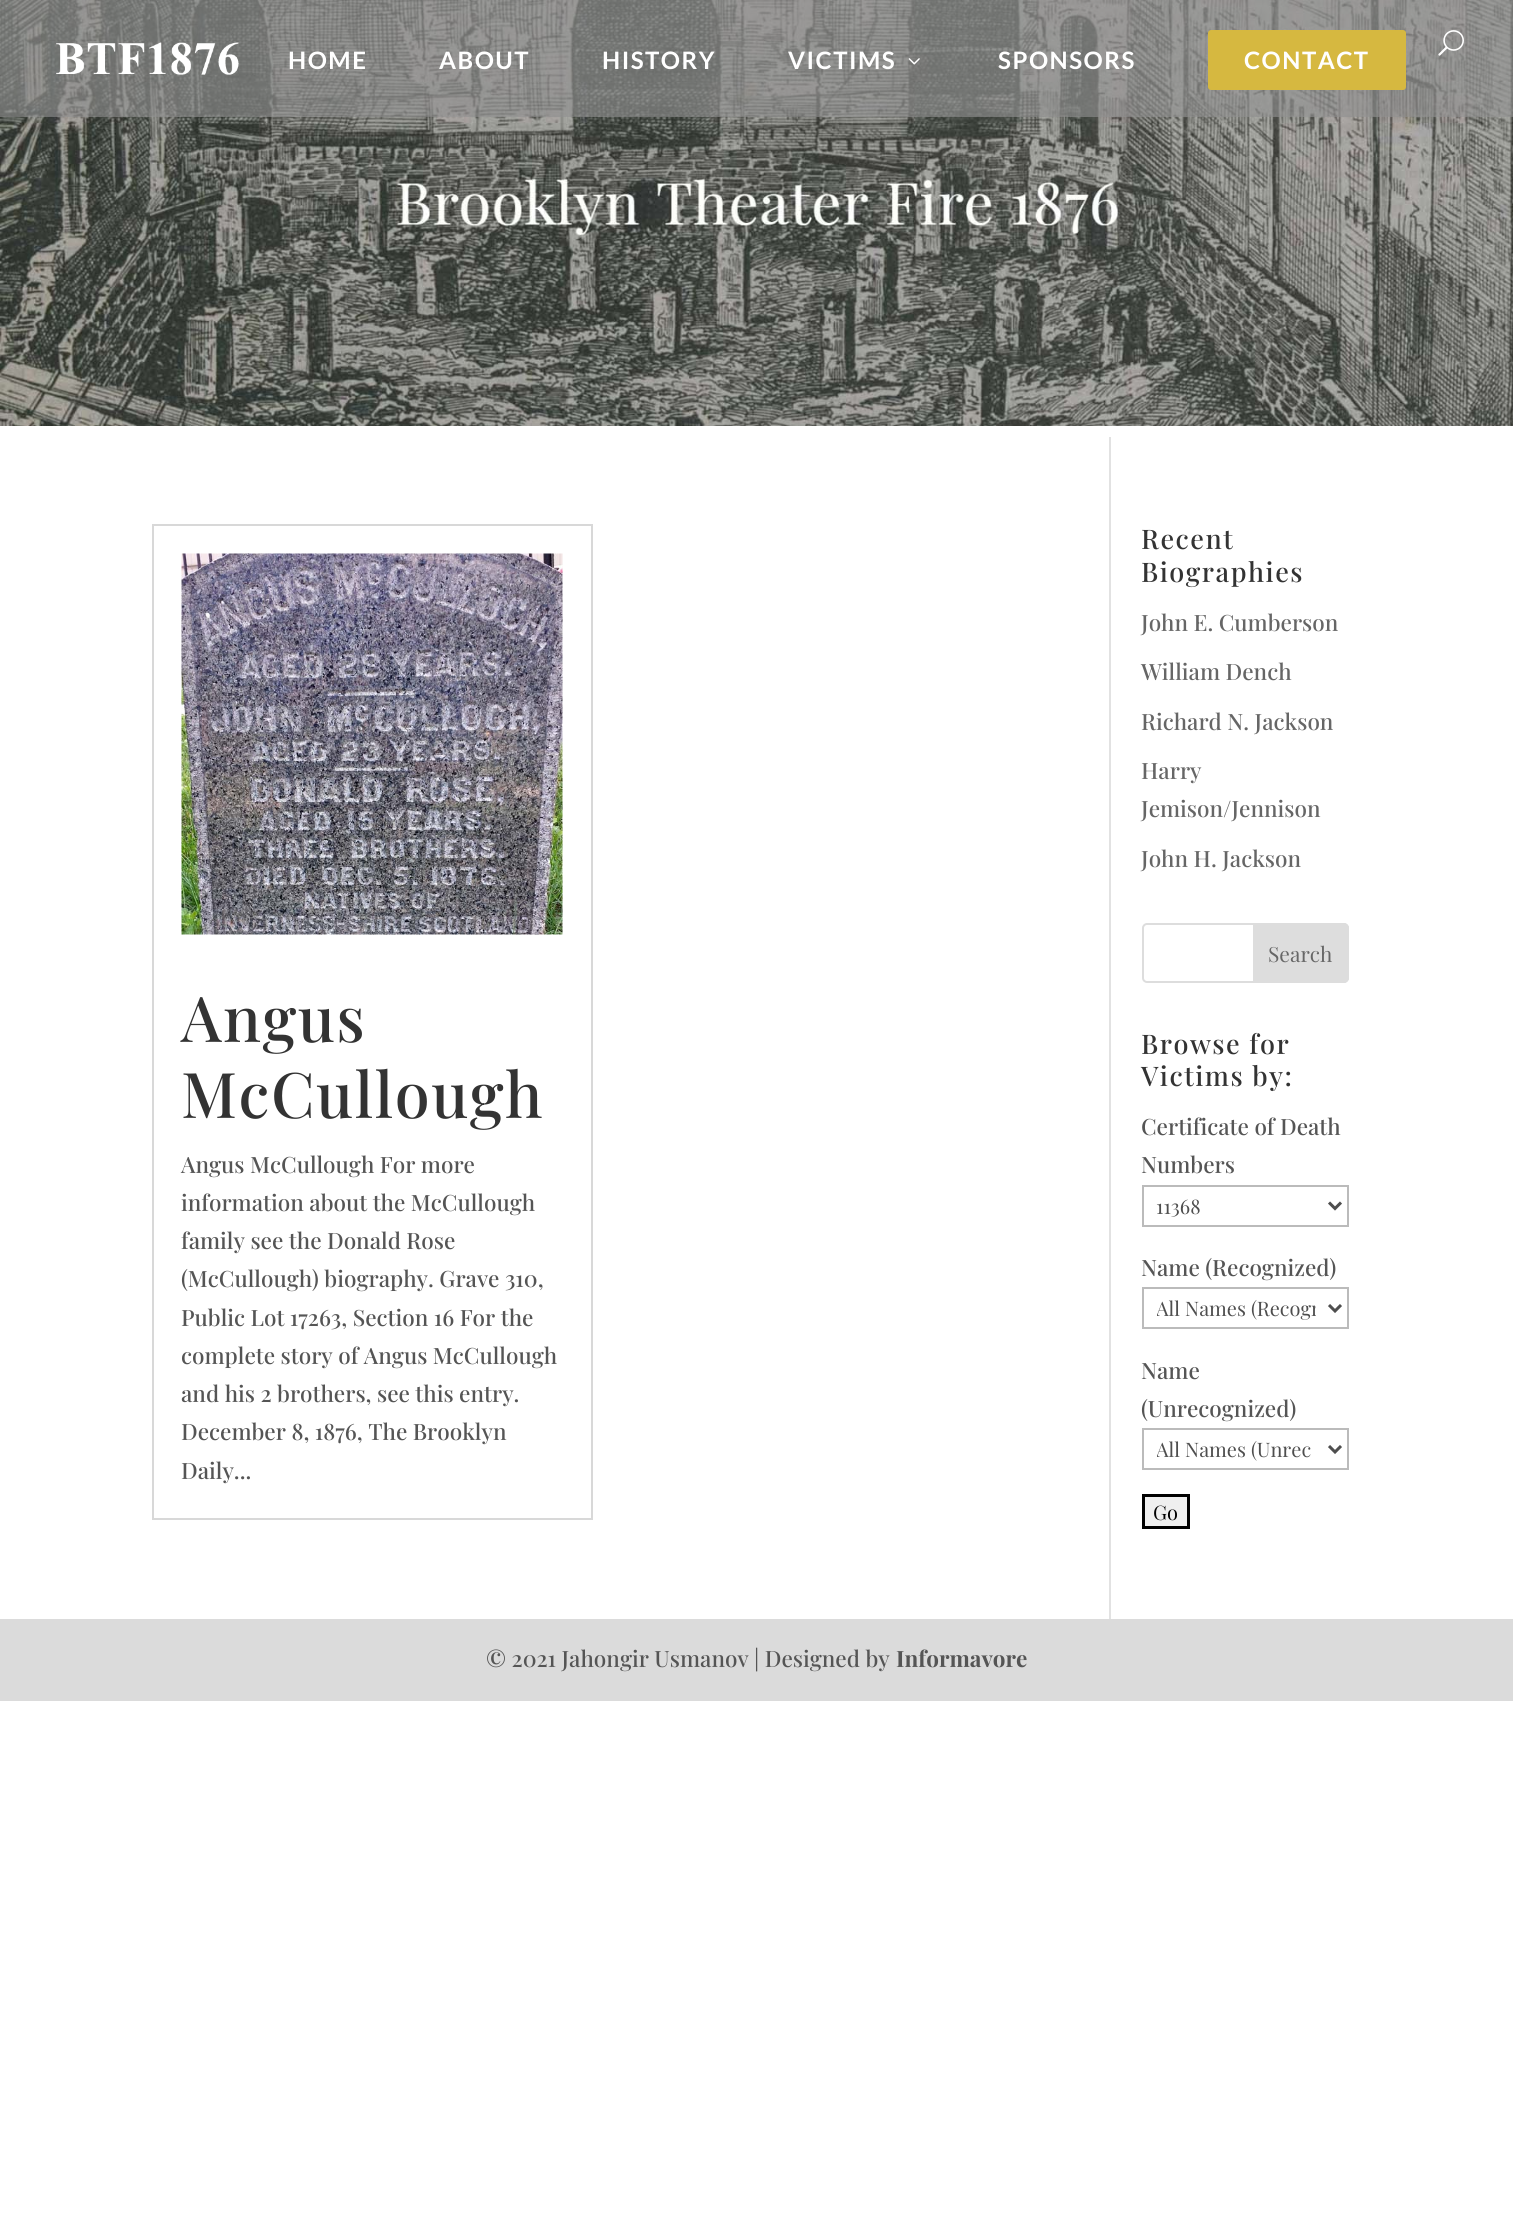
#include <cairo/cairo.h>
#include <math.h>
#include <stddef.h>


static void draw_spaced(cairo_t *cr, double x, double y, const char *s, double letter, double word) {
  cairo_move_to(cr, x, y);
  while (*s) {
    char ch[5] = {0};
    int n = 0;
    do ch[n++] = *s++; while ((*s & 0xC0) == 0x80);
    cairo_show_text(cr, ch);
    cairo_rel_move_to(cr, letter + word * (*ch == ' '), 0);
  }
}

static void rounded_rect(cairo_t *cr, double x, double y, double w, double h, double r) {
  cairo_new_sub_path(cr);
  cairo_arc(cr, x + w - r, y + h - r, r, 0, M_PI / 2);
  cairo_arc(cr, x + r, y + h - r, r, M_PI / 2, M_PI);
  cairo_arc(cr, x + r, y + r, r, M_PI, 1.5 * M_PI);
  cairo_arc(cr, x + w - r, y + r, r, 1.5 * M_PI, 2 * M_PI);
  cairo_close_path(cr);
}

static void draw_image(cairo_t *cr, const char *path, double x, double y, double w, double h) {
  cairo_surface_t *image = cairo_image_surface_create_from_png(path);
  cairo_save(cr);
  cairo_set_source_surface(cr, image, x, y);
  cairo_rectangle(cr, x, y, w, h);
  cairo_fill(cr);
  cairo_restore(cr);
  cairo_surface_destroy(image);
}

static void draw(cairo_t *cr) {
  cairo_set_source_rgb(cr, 1, 1, 1);
  cairo_paint(cr);
  draw_image(cr, "images/4.png", 0, 0, 1513, 426);
  cairo_set_source_rgba(cr, 145 / 255.0, 145 / 255.0, 145 / 255.0, 0.63);
  cairo_rectangle(cr, 0, 0, 1513, 117);
  cairo_fill(cr);
  draw_image(cr, "images/1.png", 56, 42, 183, 33);
  draw_image(cr, "images/2.png", 1438, 30, 26, 26);
  draw_image(cr, "images/3.png", 908, 58, 12, 7);
  cairo_set_source_rgb(cr, 214 / 255.0, 184 / 255.0, 64 / 255.0);
  rounded_rect(cr, 1208, 30, 198, 60, 3);
  cairo_fill(cr);
  cairo_set_source_rgb(cr, 226 / 255.0, 226 / 255.0, 226 / 255.0);
  cairo_rectangle(cr, 1109, 437, 2, 1182);
  cairo_fill(cr);
  cairo_rectangle(cr, 153, 525, 439, 994);
  cairo_set_source_rgb(cr, 216 / 255.0, 216 / 255.0, 216 / 255.0);
  cairo_stroke(cr);
  draw_image(cr, "images/5.png", 181, 553, 382, 382);
  rounded_rect(cr, 1143, 924, 205, 58, 4);
  cairo_set_source_rgb(cr, 221 / 255.0, 221 / 255.0, 221 / 255.0);
  cairo_stroke(cr);
  cairo_new_path(cr);
  cairo_move_to(cr, 1254, 924);
  cairo_line_to(cr, 1344, 924);
  cairo_curve_to(cr, 1346, 924, 1348, 926, 1348, 928);
  cairo_line_to(cr, 1348, 978);
  cairo_curve_to(cr, 1348, 980, 1346, 982, 1344, 982);
  cairo_line_to(cr, 1254, 982);
  cairo_close_path(cr);
  cairo_fill_preserve(cr);
  cairo_stroke(cr);
  cairo_rectangle(cr, 1143, 1186, 205, 40);
  cairo_set_source_rgb(cr, 187 / 255.0, 187 / 255.0, 187 / 255.0);
  cairo_stroke(cr);
  cairo_new_path(cr);
  cairo_move_to(cr, 1329, 1202.5);
  cairo_line_to(cr, 1335, 1208.5);
  cairo_line_to(cr, 1341, 1202.5);
  cairo_set_source_rgb(cr, 78 / 255.0, 78 / 255.0, 78 / 255.0);
  cairo_set_line_width(cr, 3);
  cairo_stroke(cr);
  cairo_rectangle(cr, 1143, 1288, 205, 40);
  cairo_set_source_rgb(cr, 187 / 255.0, 187 / 255.0, 187 / 255.0);
  cairo_set_line_width(cr, 2);
  cairo_stroke(cr);
  cairo_new_path(cr);
  cairo_move_to(cr, 1329, 1305);
  cairo_line_to(cr, 1335, 1311);
  cairo_line_to(cr, 1341, 1305);
  cairo_set_source_rgb(cr, 78 / 255.0, 78 / 255.0, 78 / 255.0);
  cairo_set_line_width(cr, 3);
  cairo_stroke(cr);
  cairo_rectangle(cr, 1143, 1429, 205, 40);
  cairo_set_source_rgb(cr, 187 / 255.0, 187 / 255.0, 187 / 255.0);
  cairo_set_line_width(cr, 2);
  cairo_stroke(cr);
  cairo_new_path(cr);
  cairo_move_to(cr, 1329, 1446);
  cairo_line_to(cr, 1335, 1452);
  cairo_line_to(cr, 1341, 1446);
  cairo_set_source_rgb(cr, 78 / 255.0, 78 / 255.0, 78 / 255.0);
  cairo_set_line_width(cr, 3);
  cairo_stroke(cr);
  cairo_set_source_rgb(cr, 239 / 255.0, 239 / 255.0, 239 / 255.0);
  cairo_rectangle(cr, 1143.5, 1495.5, 45, 32);
  cairo_fill_preserve(cr);
  cairo_set_source_rgb(cr, 0, 0, 0);
  cairo_stroke(cr);
  cairo_set_source_rgb(cr, 219 / 255.0, 219 / 255.0, 219 / 255.0);
  cairo_rectangle(cr, 0, 1619, 1513, 82);
  cairo_fill(cr);
  cairo_select_font_face(cr, "Lato", CAIRO_FONT_SLANT_NORMAL, CAIRO_FONT_WEIGHT_BOLD);
  cairo_set_font_size(cr, 24);
  cairo_set_source_rgb(cr, 1, 1, 1);
  draw_spaced(cr, 288, 69, "HOME", 1.5, 0);
  draw_spaced(cr, 439, 69, "ABOUT", 1.5, 0);
  draw_spaced(cr, 602, 69, "HISTORY", 1.5, 0);
  draw_spaced(cr, 788, 69, "VICTIMS", 1.5, 0);
  draw_spaced(cr, 998, 69, "SPONSORS", 1.5, 0);
  draw_spaced(cr, 1244, 69, "CONTACT", 1.5, 0);
  cairo_select_font_face(cr, "Playfair Display Medium", CAIRO_FONT_SLANT_NORMAL, CAIRO_FONT_WEIGHT_NORMAL);
  cairo_set_font_size(cr, 63);
  cairo_set_source_rgb(cr, 51 / 255.0, 51 / 255.0, 51 / 255.0);
  draw_spaced(cr, 181, 1042, "Angus", 1.5, 0);
  draw_spaced(cr, 181, 1118, "McCullough", 1.5, 0);
  cairo_set_font_size(cr, 22.5);
  cairo_set_source_rgb(cr, 85 / 255.0, 85 / 255.0, 85 / 255.0);
  cairo_move_to(cr, 181, 1173);
  cairo_show_text(cr, "Angus McCullough For more");
  cairo_move_to(cr, 181, 1211);
  cairo_show_text(cr, "information about the McCullough");
  cairo_move_to(cr, 181, 1249);
  cairo_show_text(cr, "family see the Donald Rose");
  cairo_move_to(cr, 181, 1287);
  cairo_show_text(cr, "(McCullough) biography. Grave 310,");
  cairo_move_to(cr, 181, 1326);
  cairo_show_text(cr, "Public Lot 17263, Section 16 For the");
  cairo_move_to(cr, 181, 1364);
  cairo_show_text(cr, "complete story of Angus McCullough");
  cairo_move_to(cr, 181, 1402);
  cairo_show_text(cr, "and his 2 brothers, see this entry.");
  cairo_move_to(cr, 181, 1440);
  cairo_show_text(cr, "December 8, 1876, The Brooklyn");
  cairo_move_to(cr, 181, 1479);
  cairo_show_text(cr, "Daily...");
  cairo_set_font_size(cr, 27);
  cairo_set_source_rgb(cr, 51 / 255.0, 51 / 255.0, 51 / 255.0);
  draw_spaced(cr, 1141, 549, "Recent", 1.5, 0);
  draw_spaced(cr, 1141, 582, "Biographies", 1.5, 0);
  cairo_set_font_size(cr, 22.5);
  cairo_set_source_rgb(cr, 102 / 255.0, 102 / 255.0, 102 / 255.0);
  cairo_move_to(cr, 1141, 631);
  cairo_show_text(cr, "John E. Cumberson");
  cairo_move_to(cr, 1141, 680);
  cairo_show_text(cr, "William Dench");
  cairo_move_to(cr, 1141, 730);
  cairo_show_text(cr, "Richard N. Jackson");
  cairo_move_to(cr, 1141, 779);
  cairo_show_text(cr, "Harry");
  cairo_move_to(cr, 1141, 817);
  cairo_show_text(cr, "Jemison/Jennison");
  cairo_move_to(cr, 1141, 867);
  cairo_show_text(cr, "John H. Jackson");
  cairo_select_font_face(cr, "Playfair Display", CAIRO_FONT_SLANT_NORMAL, CAIRO_FONT_WEIGHT_NORMAL);
  cairo_set_font_size(cr, 21);
  cairo_move_to(cr, 1268, 962);
  cairo_show_text(cr, "Search");
  cairo_select_font_face(cr, "Playfair Display Medium", CAIRO_FONT_SLANT_NORMAL, CAIRO_FONT_WEIGHT_NORMAL);
  cairo_set_font_size(cr, 27);
  cairo_set_source_rgb(cr, 51 / 255.0, 51 / 255.0, 51 / 255.0);
  draw_spaced(cr, 1141, 1054, "Browse for", 1.5, 0);
  draw_spaced(cr, 1141, 1086, "Victims by:", 1.5, 0);
  cairo_set_font_size(cr, 22.5);
  cairo_set_source_rgb(cr, 85 / 255.0, 85 / 255.0, 85 / 255.0);
  cairo_move_to(cr, 1141, 1135);
  cairo_show_text(cr, "Certificate of Death");
  cairo_move_to(cr, 1141, 1173);
  cairo_show_text(cr, "Numbers");
  cairo_select_font_face(cr, "Playfair Display", CAIRO_FONT_SLANT_NORMAL, CAIRO_FONT_WEIGHT_NORMAL);
  cairo_set_font_size(cr, 20);
  cairo_set_source_rgb(cr, 78 / 255.0, 78 / 255.0, 78 / 255.0);
  cairo_move_to(cr, 1156, 1214);
  cairo_show_text(cr, "11368");
  cairo_select_font_face(cr, "Playfair Display Medium", CAIRO_FONT_SLANT_NORMAL, CAIRO_FONT_WEIGHT_NORMAL);
  cairo_set_font_size(cr, 22.5);
  cairo_set_source_rgb(cr, 85 / 255.0, 85 / 255.0, 85 / 255.0);
  cairo_move_to(cr, 1141, 1276);
  cairo_show_text(cr, "Name (Recognized)");
  cairo_save(cr);
  cairo_rectangle(cr, 1157, 1295, 159, 28);
  cairo_clip(cr);
  cairo_select_font_face(cr, "Playfair Display", CAIRO_FONT_SLANT_NORMAL, CAIRO_FONT_WEIGHT_NORMAL);
  cairo_set_font_size(cr, 20);
  cairo_set_source_rgb(cr, 78 / 255.0, 78 / 255.0, 78 / 255.0);
  cairo_move_to(cr, 1156, 1316);
  cairo_show_text(cr, "All Names (Recogn");
  cairo_restore(cr);
  cairo_move_to(cr, 1141, 1379);
  cairo_show_text(cr, "Name");
  cairo_move_to(cr, 1141, 1417);
  cairo_show_text(cr, "(Unrecognized)");
  cairo_save(cr);
  cairo_rectangle(cr, 1157, 1436, 159, 28);
  cairo_clip(cr);
  cairo_select_font_face(cr, "Playfair Display", CAIRO_FONT_SLANT_NORMAL, CAIRO_FONT_WEIGHT_NORMAL);
  cairo_set_font_size(cr, 20);
  cairo_set_source_rgb(cr, 78 / 255.0, 78 / 255.0, 78 / 255.0);
  cairo_move_to(cr, 1156, 1457);
  cairo_show_text(cr, "All Names (Unrec");
  cairo_restore(cr);
  cairo_select_font_face(cr, "Playfair Display", CAIRO_FONT_SLANT_NORMAL, CAIRO_FONT_WEIGHT_NORMAL);
  cairo_set_font_size(cr, 20);
  cairo_set_source_rgb(cr, 0, 0, 0);
  cairo_move_to(cr, 1153, 1520);
  cairo_show_text(cr, "Go");
  cairo_select_font_face(cr, "Playfair Display Medium", CAIRO_FONT_SLANT_NORMAL, CAIRO_FONT_WEIGHT_NORMAL);
  cairo_set_font_size(cr, 22.5);
  cairo_set_source_rgb(cr, 85 / 255.0, 85 / 255.0, 85 / 255.0);
  cairo_move_to(cr, 486, 1667);
  cairo_show_text(cr, "© 2021 Jahongir Usmanov | Designed by");
  cairo_select_font_face(cr, "Playfair Display", CAIRO_FONT_SLANT_NORMAL, CAIRO_FONT_WEIGHT_BOLD);
  cairo_move_to(cr, 896, 1667);
  cairo_show_text(cr, "Informavore");
}

int main(void) {
  cairo_surface_t *surface = cairo_image_surface_create(CAIRO_FORMAT_RGB24, 1513, 2235);
  cairo_t *cr = cairo_create(surface);
  cairo_font_options_t *options = cairo_font_options_create();
  cairo_font_options_set_hint_metrics(options, CAIRO_HINT_METRICS_OFF);
  cairo_font_options_set_hint_style(options, CAIRO_HINT_STYLE_NONE);
  cairo_set_font_options(cr, options);
  cairo_set_miter_limit(cr, 4);
  draw(cr);
  cairo_surface_write_to_png(surface, "out.png");
  cairo_font_options_destroy(options);
  cairo_destroy(cr);
  cairo_surface_destroy(surface);
  return 0;
}
